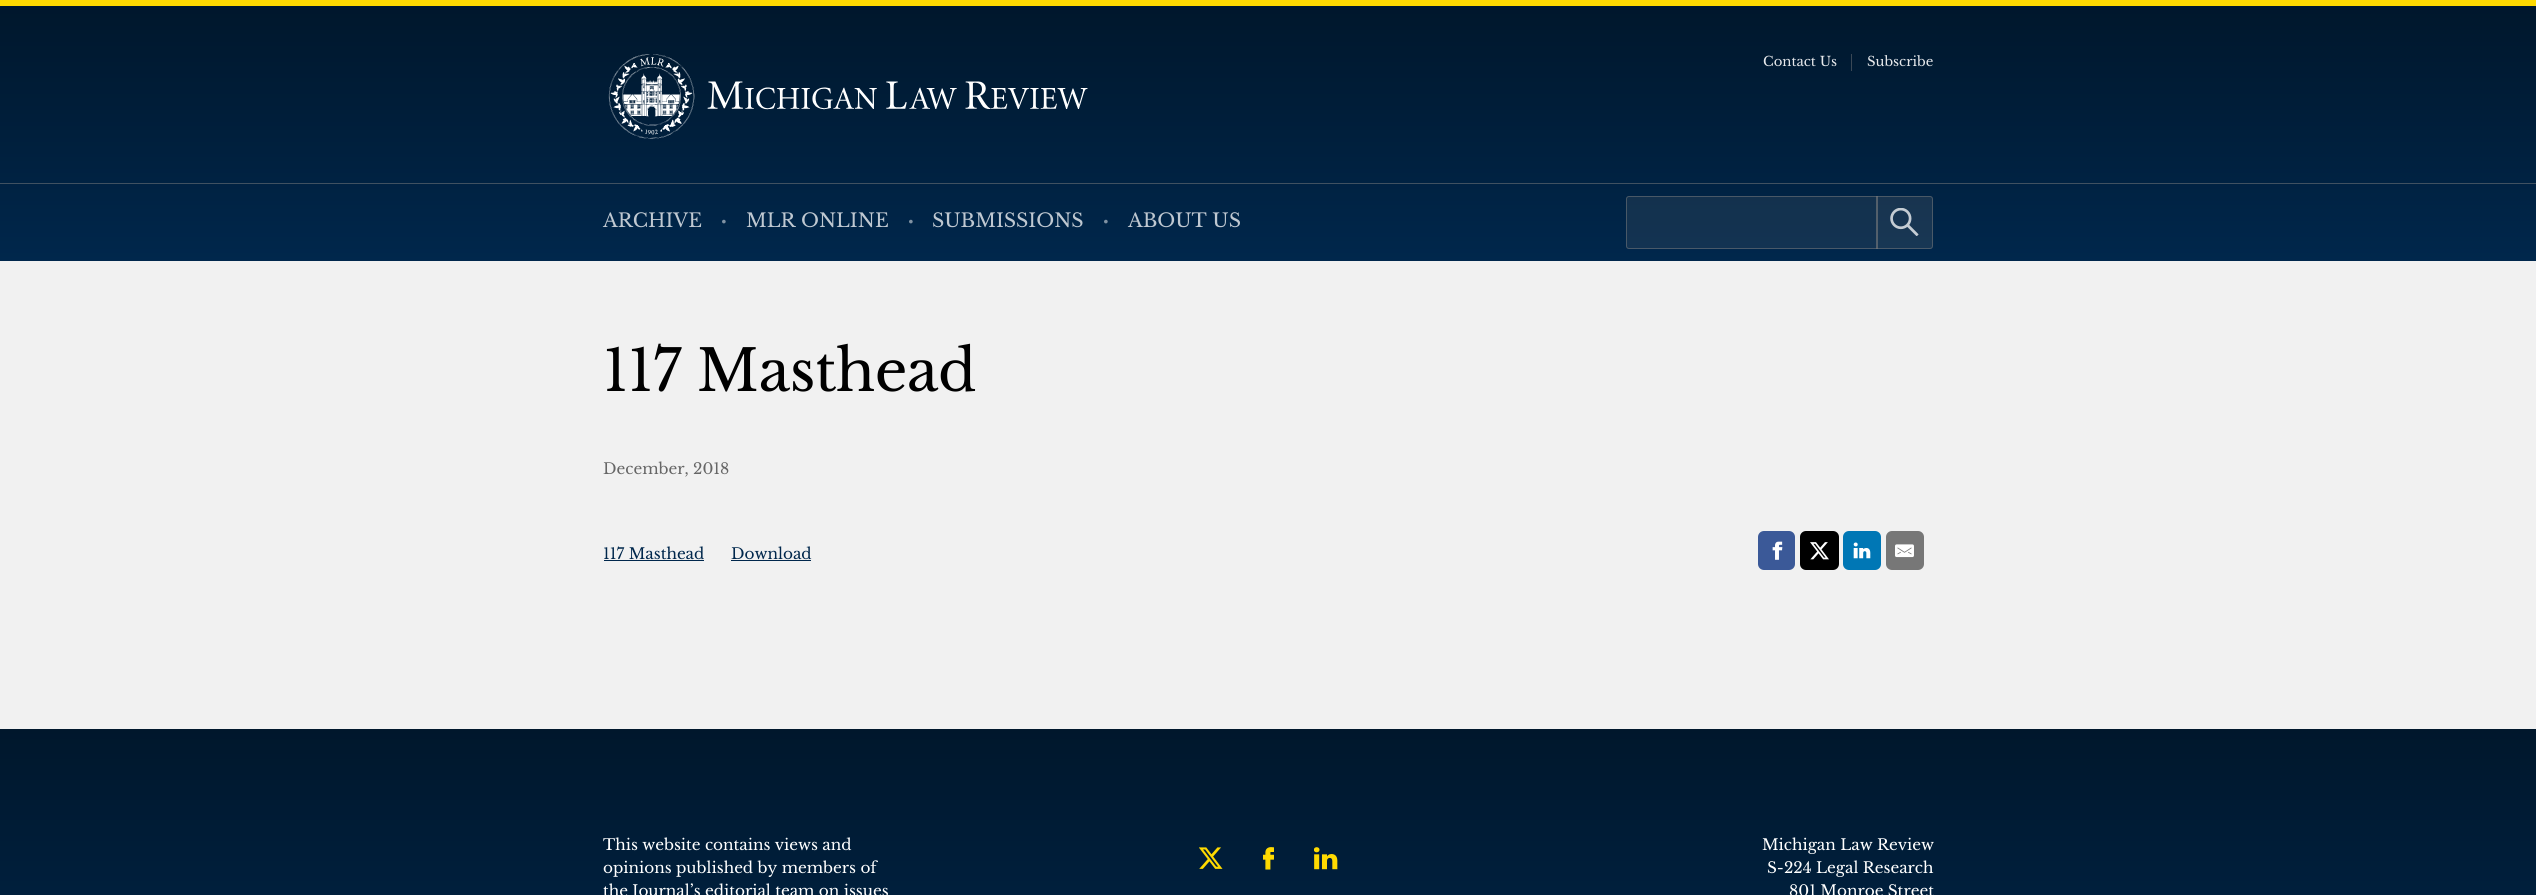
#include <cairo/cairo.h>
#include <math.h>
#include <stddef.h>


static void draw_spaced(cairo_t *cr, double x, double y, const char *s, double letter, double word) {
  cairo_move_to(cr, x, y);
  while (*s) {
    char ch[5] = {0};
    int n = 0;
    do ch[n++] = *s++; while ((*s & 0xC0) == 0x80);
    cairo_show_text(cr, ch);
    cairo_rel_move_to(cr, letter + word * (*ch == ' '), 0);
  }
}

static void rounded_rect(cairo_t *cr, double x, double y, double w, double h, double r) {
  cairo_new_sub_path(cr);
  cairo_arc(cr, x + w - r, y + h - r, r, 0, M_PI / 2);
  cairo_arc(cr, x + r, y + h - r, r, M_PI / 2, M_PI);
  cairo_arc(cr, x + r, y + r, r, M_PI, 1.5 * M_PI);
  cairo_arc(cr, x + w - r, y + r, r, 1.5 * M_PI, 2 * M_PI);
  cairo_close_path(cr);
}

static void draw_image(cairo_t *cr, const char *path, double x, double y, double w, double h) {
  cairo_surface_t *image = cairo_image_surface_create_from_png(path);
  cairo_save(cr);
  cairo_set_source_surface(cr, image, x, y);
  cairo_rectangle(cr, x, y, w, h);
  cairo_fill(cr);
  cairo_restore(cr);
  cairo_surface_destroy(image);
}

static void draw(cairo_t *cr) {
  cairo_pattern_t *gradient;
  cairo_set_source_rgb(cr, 241 / 255.0, 241 / 255.0, 241 / 255.0);
  cairo_paint(cr);
  gradient = cairo_pattern_create_linear(1268, 6.2, 1268, 261);
  cairo_pattern_add_color_stop_rgba(gradient, 0, 0, 23 / 255.0, 44 / 255.0, 1);
  cairo_pattern_add_color_stop_rgba(gradient, 1, 0, 39 / 255.0, 76 / 255.0, 1);
  cairo_set_source(cr, gradient);
  cairo_pattern_destroy(gradient);
  cairo_rectangle(cr, 0, 6, 2536, 255);
  cairo_fill(cr);
  cairo_set_source_rgb(cr, 1, 218 / 255.0, 0);
  cairo_rectangle(cr, 0, 0, 2536, 6);
  cairo_fill(cr);
  draw_image(cr, "images/1.png", 608, 54, 480, 85);
  cairo_set_source_rgb(cr, 64 / 255.0, 81 / 255.0, 97 / 255.0);
  cairo_rectangle(cr, 0, 183, 2536, 1);
  cairo_fill(cr);
  cairo_set_source_rgb(cr, 58 / 255.0, 72 / 255.0, 86 / 255.0);
  cairo_rectangle(cr, 1851, 54, 1, 17);
  cairo_fill(cr);
  cairo_set_source_rgba(cr, 128 / 255.0, 128 / 255.0, 128 / 255.0, 0.15);
  cairo_new_path(cr);
  cairo_move_to(cr, 1629, 196);
  cairo_line_to(cr, 1878, 196);
  cairo_line_to(cr, 1878, 249);
  cairo_line_to(cr, 1629, 249);
  cairo_curve_to(cr, 1627.5, 249, 1626, 247.5, 1626, 246);
  cairo_line_to(cr, 1626, 199);
  cairo_curve_to(cr, 1626, 197.5, 1627.5, 196, 1629, 196);
  cairo_close_path(cr);
  cairo_fill(cr);
  cairo_new_path(cr);
  cairo_move_to(cr, 1629, 196.5);
  cairo_line_to(cr, 1877.5, 196.5);
  cairo_line_to(cr, 1877.5, 248.5);
  cairo_line_to(cr, 1629, 248.5);
  cairo_curve_to(cr, 1627.5, 248.5, 1626.5, 247.5, 1626.5, 246);
  cairo_line_to(cr, 1626.5, 199);
  cairo_curve_to(cr, 1626.5, 197.5, 1627.5, 196.5, 1629, 196.5);
  cairo_close_path(cr);
  cairo_set_source_rgba(cr, 128 / 255.0, 128 / 255.0, 128 / 255.0, 0.5);
  cairo_set_line_width(cr, 1);
  cairo_stroke(cr);
  cairo_set_source_rgba(cr, 128 / 255.0, 128 / 255.0, 128 / 255.0, 0.19);
  cairo_new_path(cr);
  cairo_move_to(cr, 1876, 196);
  cairo_line_to(cr, 1930, 196);
  cairo_curve_to(cr, 1931.5, 196, 1933, 197.5, 1933, 199);
  cairo_line_to(cr, 1933, 246);
  cairo_curve_to(cr, 1933, 247.5, 1931.5, 249, 1930, 249);
  cairo_line_to(cr, 1876, 249);
  cairo_close_path(cr);
  cairo_fill(cr);
  draw_image(cr, "images/2.png", 1890, 208, 29, 28);
  cairo_new_path(cr);
  cairo_move_to(cr, 1876.5, 196.5);
  cairo_line_to(cr, 1930, 196.5);
  cairo_curve_to(cr, 1931.5, 196.5, 1932.5, 197.5, 1932.5, 199);
  cairo_line_to(cr, 1932.5, 246);
  cairo_curve_to(cr, 1932.5, 247.5, 1931.5, 248.5, 1930, 248.5);
  cairo_line_to(cr, 1876.5, 248.5);
  cairo_close_path(cr);
  cairo_set_source_rgba(cr, 128 / 255.0, 128 / 255.0, 128 / 255.0, 0.49);
  cairo_stroke(cr);
  cairo_set_source_rgb(cr, 0, 39 / 255.0, 76 / 255.0);
  cairo_rectangle(cr, 604, 560, 100, 1);
  cairo_fill(cr);
  cairo_rectangle(cr, 731, 560, 80, 1);
  cairo_fill(cr);
  cairo_set_source_rgb(cr, 59 / 255.0, 89 / 255.0, 152 / 255.0);
  rounded_rect(cr, 1758, 531, 37, 39, 6);
  cairo_fill(cr);
  draw_image(cr, "images/3.png", 1772, 541, 11, 19);
  cairo_set_source_rgb(cr, 0, 0, 0);
  rounded_rect(cr, 1800, 531, 39, 39, 6);
  cairo_fill(cr);
  draw_image(cr, "images/4.png", 1810, 542, 19, 18);
  cairo_set_source_rgb(cr, 0, 119 / 255.0, 181 / 255.0);
  rounded_rect(cr, 1843, 531, 38, 39, 6);
  cairo_fill(cr);
  draw_image(cr, "images/5.png", 1853, 542, 18, 17);
  cairo_set_source_rgb(cr, 119 / 255.0, 119 / 255.0, 119 / 255.0);
  rounded_rect(cr, 1886, 531, 38, 39, 6);
  cairo_fill(cr);
  draw_image(cr, "images/6.png", 1895, 544, 19, 14);
  gradient = cairo_pattern_create_linear(1268, 729, 1268, 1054);
  cairo_pattern_add_color_stop_rgba(gradient, 0, 0, 23 / 255.0, 44 / 255.0, 1);
  cairo_pattern_add_color_stop_rgba(gradient, 1, 0, 39 / 255.0, 76 / 255.0, 1);
  cairo_set_source(cr, gradient);
  cairo_pattern_destroy(gradient);
  cairo_rectangle(cr, 0, 729, 2536, 166);
  cairo_fill(cr);
  draw_image(cr, "images/7.png", 1199, 847, 24, 22);
  draw_image(cr, "images/8.png", 1263, 847, 11, 23);
  draw_image(cr, "images/9.png", 1314, 847, 24, 23);
  cairo_select_font_face(cr, "Libre Baskerville", CAIRO_FONT_SLANT_NORMAL, CAIRO_FONT_WEIGHT_NORMAL);
  cairo_set_font_size(cr, 13.25);
  cairo_set_source_rgb(cr, 230 / 255.0, 232 / 255.0, 235 / 255.0);
  cairo_move_to(cr, 1763, 66);
  cairo_show_text(cr, "Contact Us");
  cairo_move_to(cr, 1867, 66);
  cairo_show_text(cr, "Subscribe");
  cairo_set_font_size(cr, 19);
  cairo_set_source_rgb(cr, 191 / 255.0, 200 / 255.0, 209 / 255.0);
  cairo_move_to(cr, 603, 227);
  cairo_show_text(cr, "ARCHIVE");
  cairo_set_font_size(cr, 12);
  cairo_set_source_rgb(cr, 128 / 255.0, 146 / 255.0, 163 / 255.0);
  cairo_move_to(cr, 721, 226);
  cairo_show_text(cr, "•");
  cairo_set_font_size(cr, 19);
  cairo_set_source_rgb(cr, 191 / 255.0, 200 / 255.0, 209 / 255.0);
  cairo_move_to(cr, 746, 227);
  cairo_show_text(cr, "MLR ONLINE");
  cairo_set_font_size(cr, 12);
  cairo_set_source_rgb(cr, 128 / 255.0, 146 / 255.0, 163 / 255.0);
  cairo_move_to(cr, 908, 226);
  cairo_show_text(cr, "•");
  cairo_set_font_size(cr, 19);
  cairo_set_source_rgb(cr, 191 / 255.0, 200 / 255.0, 209 / 255.0);
  cairo_move_to(cr, 932, 227);
  cairo_show_text(cr, "SUBMISSIONS");
  cairo_set_font_size(cr, 12);
  cairo_set_source_rgb(cr, 128 / 255.0, 146 / 255.0, 163 / 255.0);
  cairo_move_to(cr, 1103, 226);
  cairo_show_text(cr, "•");
  cairo_set_font_size(cr, 19);
  cairo_set_source_rgb(cr, 191 / 255.0, 200 / 255.0, 209 / 255.0);
  cairo_move_to(cr, 1128, 227);
  cairo_show_text(cr, "ABOUT US");
  cairo_set_font_size(cr, 57);
  cairo_set_source_rgb(cr, 0, 0, 0);
  draw_spaced(cr, 603, 391, "117 Masthead", -0.5, 0);
  cairo_set_font_size(cr, 15.25);
  cairo_set_source_rgb(cr, 102 / 255.0, 102 / 255.0, 102 / 255.0);
  cairo_move_to(cr, 603, 474);
  cairo_show_text(cr, "December, 2018");
  cairo_set_source_rgb(cr, 0, 39 / 255.0, 76 / 255.0);
  cairo_move_to(cr, 603, 559);
  cairo_show_text(cr, "117 Masthead");
  cairo_move_to(cr, 731, 559);
  cairo_show_text(cr, "Download");
  cairo_set_source_rgb(cr, 1, 1, 1);
  cairo_move_to(cr, 603, 850);
  cairo_show_text(cr, "This website contains views and");
  cairo_move_to(cr, 603, 873);
  cairo_show_text(cr, "opinions published by members of");
  cairo_move_to(cr, 603, 896);
  cairo_show_text(cr, "the Journal’s editorial team on issues");
  cairo_move_to(cr, 1762, 850);
  cairo_show_text(cr, "Michigan Law Review");
  cairo_move_to(cr, 1767, 873);
  cairo_show_text(cr, "S-224 Legal Research");
  cairo_move_to(cr, 1789, 896);
  cairo_show_text(cr, "801 Monroe Street");
}

int main(void) {
  cairo_surface_t *surface = cairo_image_surface_create(CAIRO_FORMAT_RGB24, 2536, 895);
  cairo_t *cr = cairo_create(surface);
  cairo_font_options_t *options = cairo_font_options_create();
  cairo_font_options_set_hint_metrics(options, CAIRO_HINT_METRICS_OFF);
  cairo_font_options_set_hint_style(options, CAIRO_HINT_STYLE_NONE);
  cairo_set_font_options(cr, options);
  cairo_set_miter_limit(cr, 4);
  draw(cr);
  cairo_surface_write_to_png(surface, "out.png");
  cairo_font_options_destroy(options);
  cairo_destroy(cr);
  cairo_surface_destroy(surface);
  return 0;
}
